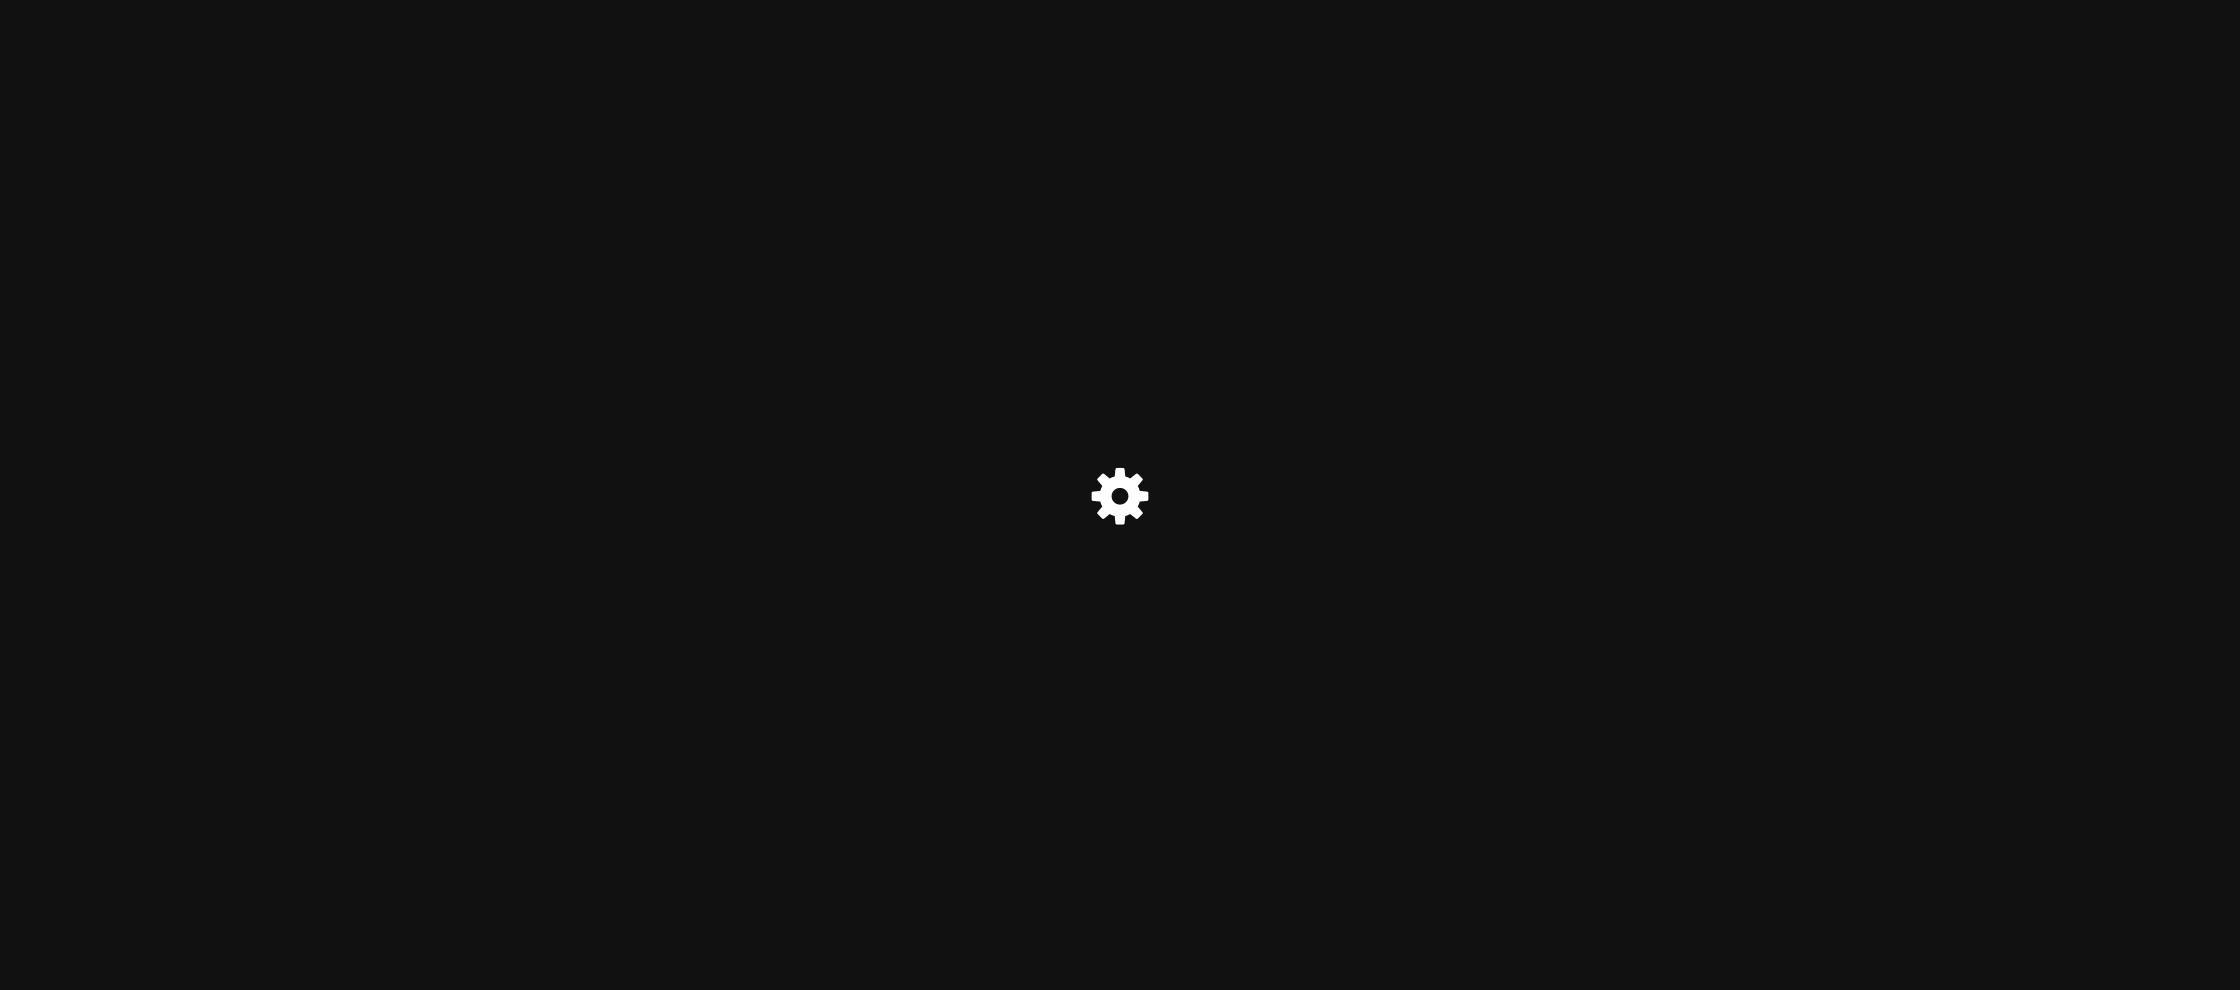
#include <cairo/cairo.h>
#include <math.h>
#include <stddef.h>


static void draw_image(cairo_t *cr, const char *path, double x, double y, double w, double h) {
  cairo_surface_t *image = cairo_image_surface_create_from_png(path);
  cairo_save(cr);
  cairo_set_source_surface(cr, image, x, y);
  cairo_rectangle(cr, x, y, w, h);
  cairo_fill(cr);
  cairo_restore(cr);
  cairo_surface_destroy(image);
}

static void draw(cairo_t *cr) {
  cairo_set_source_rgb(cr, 17 / 255.0, 17 / 255.0, 17 / 255.0);
  cairo_paint(cr);
  draw_image(cr, "images/1.png", 1091, 467, 58, 58);
}

int main(void) {
  cairo_surface_t *surface = cairo_image_surface_create(CAIRO_FORMAT_RGB24, 2240, 990);
  cairo_t *cr = cairo_create(surface);
  cairo_font_options_t *options = cairo_font_options_create();
  cairo_font_options_set_hint_metrics(options, CAIRO_HINT_METRICS_OFF);
  cairo_font_options_set_hint_style(options, CAIRO_HINT_STYLE_NONE);
  cairo_set_font_options(cr, options);
  cairo_set_miter_limit(cr, 4);
  draw(cr);
  cairo_surface_write_to_png(surface, "out.png");
  cairo_font_options_destroy(options);
  cairo_destroy(cr);
  cairo_surface_destroy(surface);
  return 0;
}
